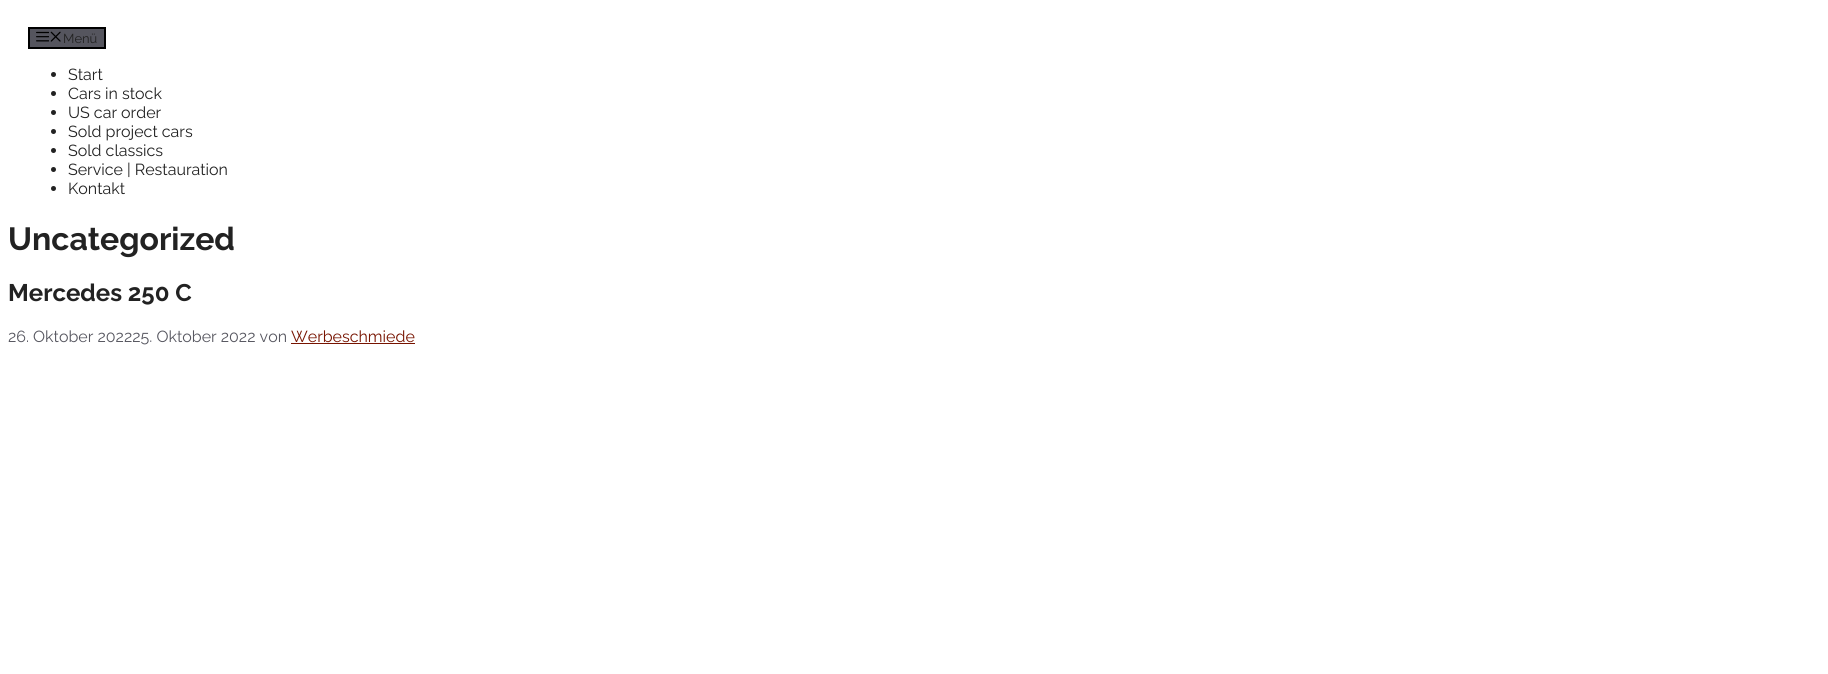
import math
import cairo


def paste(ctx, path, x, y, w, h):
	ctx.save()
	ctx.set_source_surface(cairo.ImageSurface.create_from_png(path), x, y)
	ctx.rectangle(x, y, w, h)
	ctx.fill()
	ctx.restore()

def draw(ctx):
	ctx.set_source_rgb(1, 1, 1)
	ctx.paint()
	ctx.set_source_rgb(0.333, 0.333, 0.369)
	ctx.rectangle(29, 28, 76, 20)
	ctx.fill_preserve()
	ctx.set_source_rgb(0, 0, 0)
	ctx.stroke()
	paste(ctx, 'media/1.png', 36, 31, 13, 11)
	paste(ctx, 'media/2.png', 50, 31, 11, 11)
	ctx.select_font_face('Raleway')
	ctx.set_font_size(13)
	ctx.set_source_rgb(0.133, 0.133, 0.133)
	ctx.move_to(63, 43)
	ctx.show_text('Menü')
	ctx.new_path()
	ctx.arc(53.5, 74.5, 2.5, 0, 2 * math.pi)
	ctx.fill()
	ctx.set_font_size(16)
	ctx.move_to(68, 80)
	ctx.show_text('Start')
	ctx.new_path()
	ctx.arc(53.5, 93.5, 2.5, 0, 2 * math.pi)
	ctx.fill()
	ctx.move_to(68, 99)
	ctx.show_text('Cars in stock')
	ctx.new_path()
	ctx.arc(53.5, 112.5, 2.5, 0, 2 * math.pi)
	ctx.fill()
	ctx.move_to(68, 118)
	ctx.show_text('US car order')
	ctx.new_path()
	ctx.arc(53.5, 131.5, 2.5, 0, 2 * math.pi)
	ctx.fill()
	ctx.move_to(68, 137)
	ctx.show_text('Sold project cars')
	ctx.new_path()
	ctx.arc(53.5, 150.5, 2.5, 0, 2 * math.pi)
	ctx.fill()
	ctx.move_to(68, 156)
	ctx.show_text('Sold classics')
	ctx.new_path()
	ctx.arc(53.5, 169.5, 2.5, 0, 2 * math.pi)
	ctx.fill()
	ctx.move_to(68, 175)
	ctx.show_text('Service | Restauration')
	ctx.new_path()
	ctx.arc(53.5, 188.5, 2.5, 0, 2 * math.pi)
	ctx.fill()
	ctx.move_to(68, 194)
	ctx.show_text('Kontakt')
	ctx.select_font_face('Raleway', cairo.FONT_SLANT_NORMAL, cairo.FONT_WEIGHT_BOLD)
	ctx.set_font_size(32)
	ctx.move_to(8, 250)
	ctx.show_text('Uncategorized')
	ctx.set_font_size(24)
	ctx.move_to(8, 301)
	ctx.show_text('Mercedes 250 C')
	ctx.select_font_face('Raleway')
	ctx.set_font_size(16)
	ctx.set_source_rgb(0.341, 0.341, 0.376)
	ctx.move_to(8, 342)
	ctx.show_text('26. Oktober 202225. Oktober 2022 von')
	ctx.set_source_rgb(0.467, 0.075, 0)
	ctx.move_to(291, 342)
	ctx.show_text('Werbeschmiede')
	ctx.rectangle(291, 343, 124, 1)
	ctx.fill()


surface = cairo.ImageSurface(cairo.FORMAT_RGB24, 1828, 674)
ctx = cairo.Context(surface)
options = cairo.FontOptions()
options.set_hint_metrics(cairo.HINT_METRICS_OFF)
options.set_hint_style(cairo.HINT_STYLE_NONE)
ctx.set_font_options(options)
ctx.set_miter_limit(4)
draw(ctx)
surface.write_to_png('image.png')
